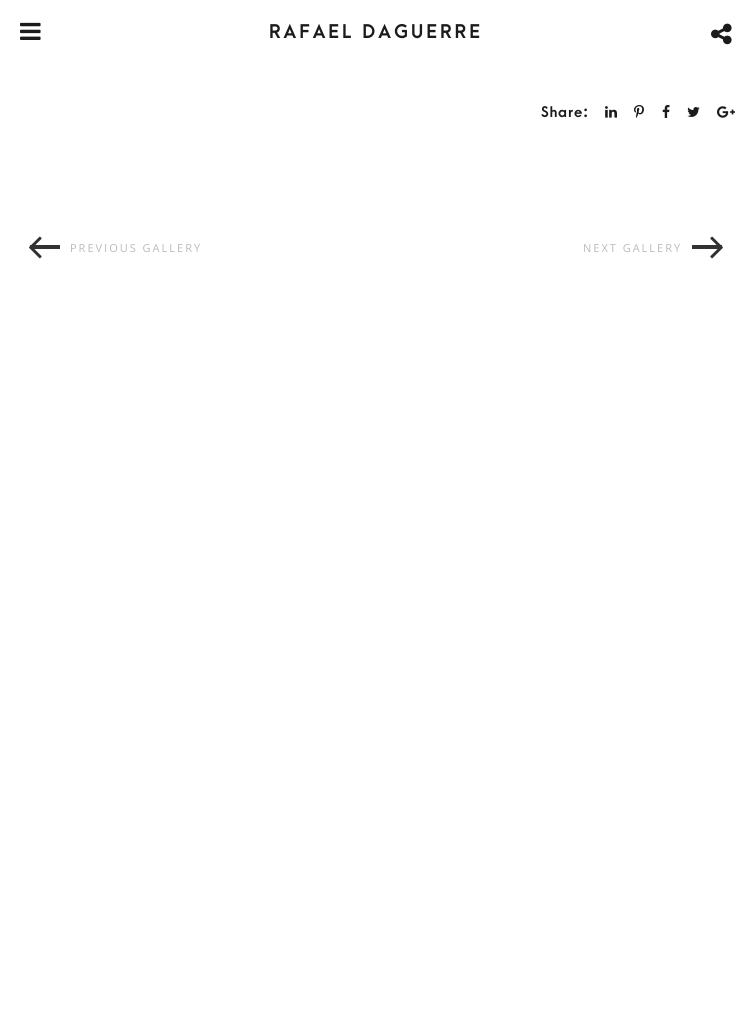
import math
import cairo


def write_spaced(ctx, x, y, s, letter, word):
	ctx.move_to(x, y)
	for ch in s:
		ctx.show_text(ch)
		ctx.rel_move_to(letter + word * (ch == ' '), 0)

def paste(ctx, path, x, y, w, h):
	ctx.save()
	ctx.set_source_surface(cairo.ImageSurface.create_from_png(path), x, y)
	ctx.rectangle(x, y, w, h)
	ctx.fill()
	ctx.restore()

def draw(ctx):
	ctx.set_source_rgb(1, 1, 1)
	ctx.paint()
	paste(ctx, 'media/1.png', 20, 22, 21, 18)
	ctx.select_font_face('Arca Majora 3', cairo.FONT_SLANT_NORMAL, cairo.FONT_WEIGHT_BOLD)
	ctx.set_font_size(18)
	ctx.set_source_rgb(0.106, 0.106, 0.106)
	write_spaced(ctx, 269, 38, 'RAFAEL DAGUERRE', 3, 0)
	paste(ctx, 'media/2.png', 711, 23, 21, 22)
	ctx.set_font_size(14)
	write_spaced(ctx, 541, 117, 'Share:', 0.75, 0)
	paste(ctx, 'media/3.png', 605, 106, 12, 12)
	paste(ctx, 'media/4.png', 634, 105, 10, 13)
	paste(ctx, 'media/5.png', 662, 105, 8, 13)
	paste(ctx, 'media/6.png', 687, 107, 13, 10)
	paste(ctx, 'media/7.png', 717, 106, 18, 12)
	paste(ctx, 'media/8.png', 29, 236, 13, 23)
	ctx.select_font_face('Open Sans')
	ctx.set_font_size(11)
	ctx.set_source_rgb(0.729, 0.729, 0.729)
	write_spaced(ctx, 70, 252, 'PREVIOUS GALLERY', 2, 0)
	ctx.set_source_rgb(0.196, 0.196, 0.196)
	ctx.rectangle(30, 245, 30, 4)
	ctx.fill()
	ctx.set_source_rgb(0.729, 0.729, 0.729)
	write_spaced(ctx, 583, 252, 'NEXT GALLERY', 2, 0)
	paste(ctx, 'media/9.png', 710, 236, 13, 23)
	ctx.set_source_rgb(0.196, 0.196, 0.196)
	ctx.rectangle(692, 245, 30, 4)
	ctx.fill()


surface = cairo.ImageSurface(cairo.FORMAT_RGB24, 752, 1022)
ctx = cairo.Context(surface)
options = cairo.FontOptions()
options.set_hint_metrics(cairo.HINT_METRICS_OFF)
options.set_hint_style(cairo.HINT_STYLE_NONE)
ctx.set_font_options(options)
ctx.set_miter_limit(4)
draw(ctx)
surface.write_to_png('image.png')
